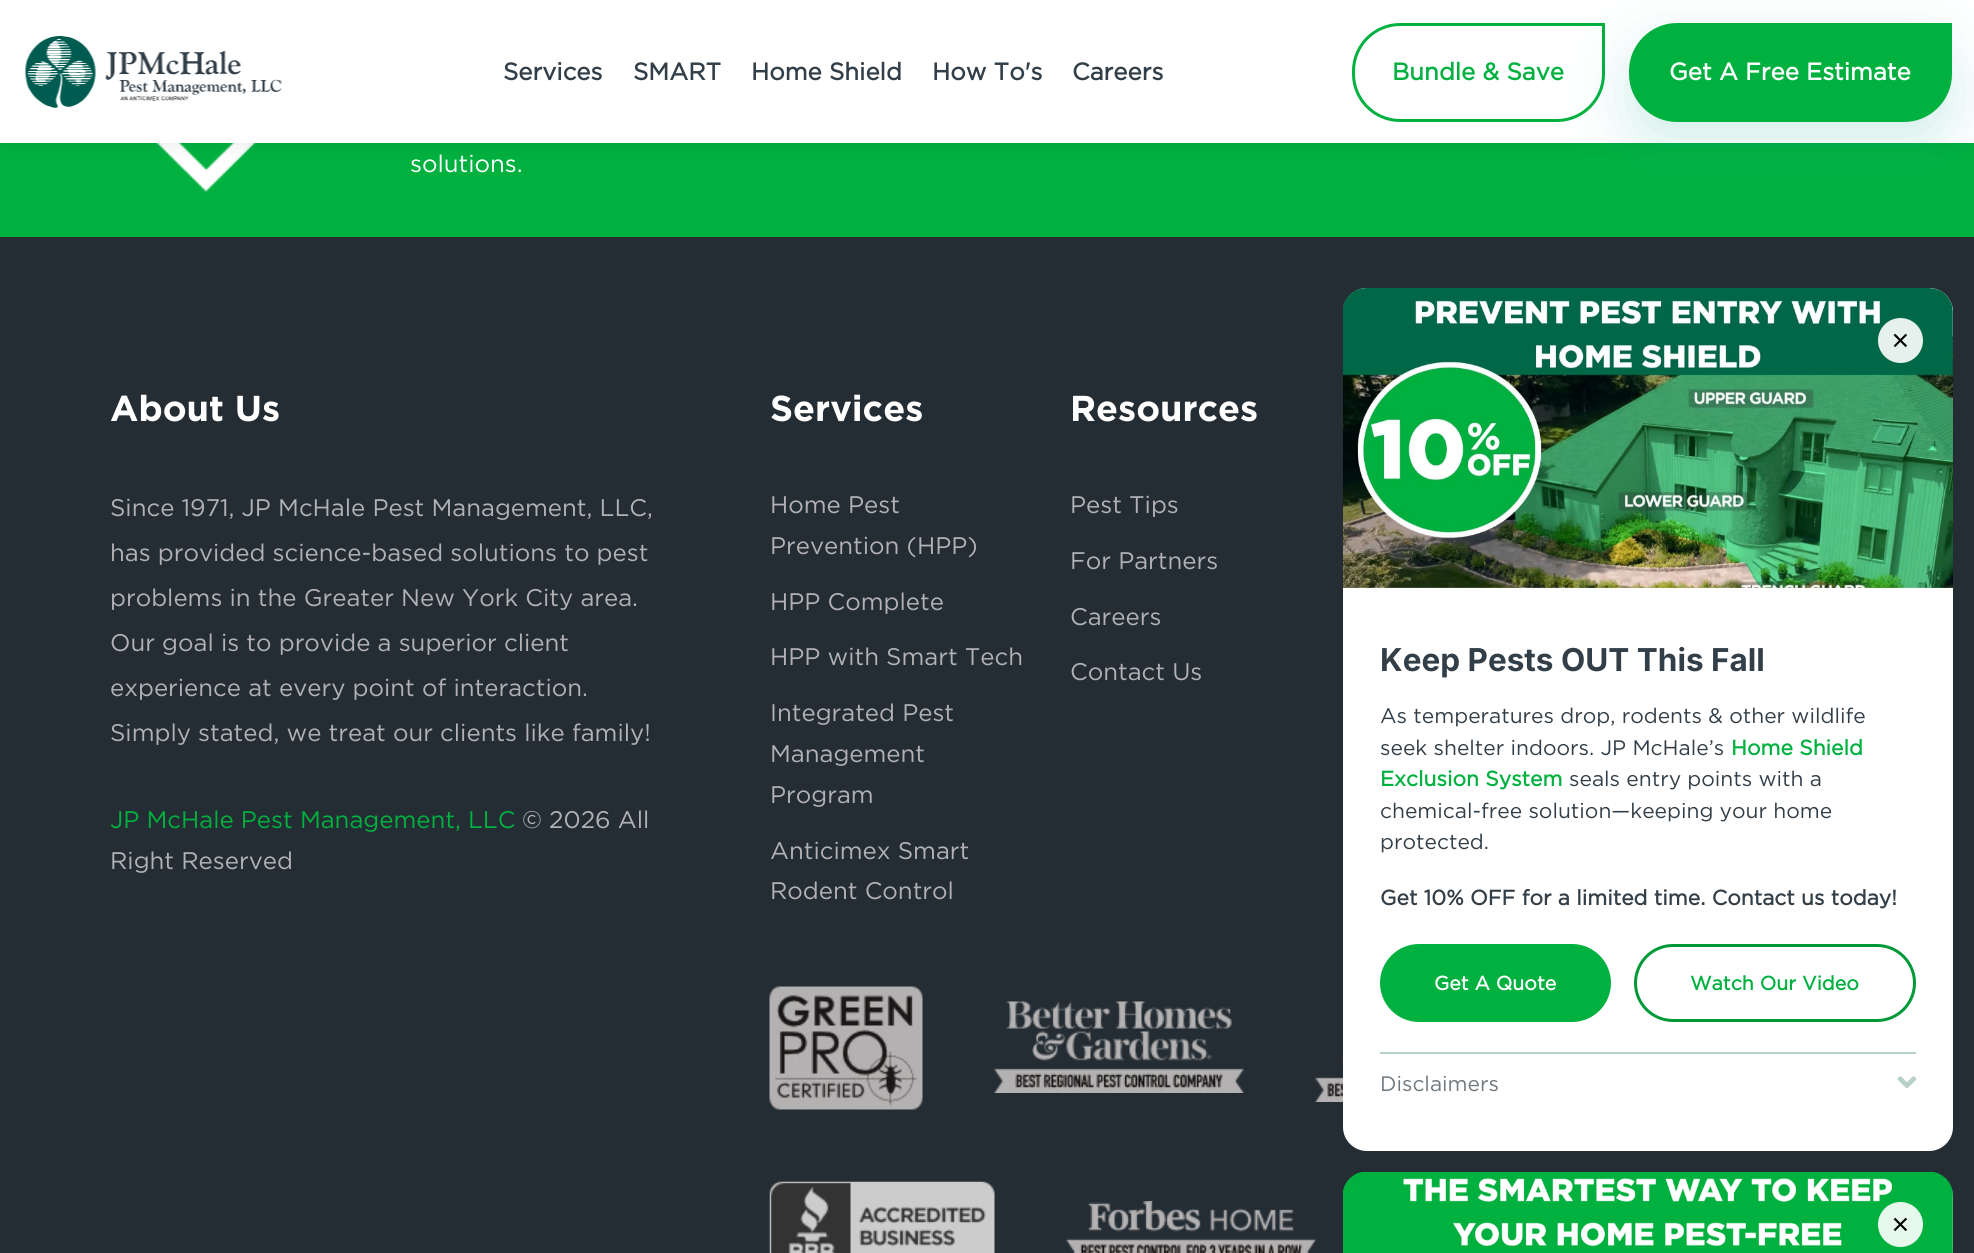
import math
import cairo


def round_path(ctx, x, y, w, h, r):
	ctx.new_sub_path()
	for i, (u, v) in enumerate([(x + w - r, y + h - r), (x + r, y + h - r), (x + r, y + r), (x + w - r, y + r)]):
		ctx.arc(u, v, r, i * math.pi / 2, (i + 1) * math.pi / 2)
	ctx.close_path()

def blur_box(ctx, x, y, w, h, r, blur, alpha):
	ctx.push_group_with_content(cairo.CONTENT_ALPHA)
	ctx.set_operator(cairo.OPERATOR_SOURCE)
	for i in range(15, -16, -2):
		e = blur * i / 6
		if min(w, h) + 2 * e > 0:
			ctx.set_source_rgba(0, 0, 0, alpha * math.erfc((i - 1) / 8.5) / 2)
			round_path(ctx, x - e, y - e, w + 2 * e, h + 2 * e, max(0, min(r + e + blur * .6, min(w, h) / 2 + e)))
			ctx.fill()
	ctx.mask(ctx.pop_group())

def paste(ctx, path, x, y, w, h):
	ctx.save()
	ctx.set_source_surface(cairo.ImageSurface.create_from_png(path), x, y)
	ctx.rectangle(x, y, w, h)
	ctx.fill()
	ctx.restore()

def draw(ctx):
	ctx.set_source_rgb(0, 0.694, 0.251)
	ctx.paint()
	paste(ctx, 'media/2.png', 155, 143, 101, 49)
	ctx.set_source_rgb(0, 0, 0)
	blur_box(ctx, 0, 0, 1974, 143, 0, 11, 0.1)
	ctx.set_source_rgb(1, 1, 1)
	ctx.rectangle(0, 0, 1974, 143)
	ctx.fill()
	paste(ctx, 'media/1.png', 25, 36, 257, 72)
	ctx.select_font_face('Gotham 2', cairo.FONT_SLANT_NORMAL, cairo.FONT_WEIGHT_BOLD)
	ctx.set_font_size(24)
	ctx.set_source_rgb(0.2, 0.247, 0.282)
	for x, y, s in [
		(503, 80, 'Services'),
		(633, 80, 'SMART'),
		(751, 80, 'Home Shield'),
		(932, 80, 'How To\'s'),
		(1072, 80, 'Careers'),
	]:
		ctx.move_to(x, y)
		ctx.show_text(s)
	ctx.new_path()
	ctx.move_to(1400, 24.5)
	ctx.line_to(1603.5, 24.5)
	ctx.line_to(1603.5, 74)
	ctx.curve_to(1603.5, 99.5, 1582.5, 120.5, 1557, 120.5)
	ctx.line_to(1400, 120.5)
	ctx.curve_to(1374.5, 120.5, 1353.5, 99.5, 1353.5, 74)
	ctx.line_to(1353.5, 71)
	ctx.curve_to(1353.5, 45.5, 1374.5, 24.5, 1400, 24.5)
	ctx.close_path()
	ctx.set_source_rgb(0, 0.694, 0.251)
	ctx.set_line_width(3)
	ctx.stroke()
	ctx.move_to(1392, 80)
	ctx.show_text('Bundle & Save')
	ctx.set_source_rgb(0.125, 0.671, 0.58)
	blur_box(ctx, 1629, 45, 323, 99, 48, 30, 0.2)
	ctx.set_source_rgb(0, 0.694, 0.251)
	ctx.new_path()
	ctx.move_to(1677, 24.5)
	ctx.line_to(1950.5, 24.5)
	ctx.line_to(1950.5, 74)
	ctx.curve_to(1950.5, 99.5, 1929.5, 120.5, 1904, 120.5)
	ctx.line_to(1677, 120.5)
	ctx.curve_to(1651.5, 120.5, 1630.5, 99.5, 1630.5, 74)
	ctx.line_to(1630.5, 71)
	ctx.curve_to(1630.5, 45.5, 1651.5, 24.5, 1677, 24.5)
	ctx.close_path()
	ctx.fill_preserve()
	ctx.stroke()
	ctx.set_source_rgb(1, 1, 1)
	ctx.move_to(1669, 80)
	ctx.show_text('Get A Free Estimate')
	ctx.select_font_face('Gotham')
	ctx.move_to(410, 172)
	ctx.show_text('solutions.')
	ctx.set_source_rgb(0.141, 0.176, 0.2)
	ctx.rectangle(0, 237, 1974, 1016)
	ctx.fill()
	ctx.select_font_face('Gotham', cairo.FONT_SLANT_NORMAL, cairo.FONT_WEIGHT_BOLD)
	ctx.set_font_size(36)
	ctx.set_source_rgb(1, 1, 1)
	ctx.move_to(110, 421)
	ctx.show_text('About Us')
	ctx.select_font_face('Gotham')
	ctx.set_font_size(24)
	ctx.set_source_rgb(0.694, 0.698, 0.714)
	for x, y, s in [
		(110, 516, 'Since 1971, JP McHale Pest Management, LLC,'),
		(110, 561, 'has provided science-based solutions to pest'),
		(110, 606, 'problems in the Greater New York City area.'),
		(110, 651, 'Our goal is to provide a superior client'),
		(110, 696, 'experience at every point of interaction.'),
		(110, 741, 'Simply stated, we treat our clients like family!'),
	]:
		ctx.move_to(x, y)
		ctx.show_text(s)
	ctx.set_source_rgb(0, 0.694, 0.251)
	ctx.move_to(110, 828)
	ctx.show_text('JP McHale Pest Management, LLC')
	ctx.set_source_rgb(0.694, 0.698, 0.714)
	ctx.move_to(522, 828)
	ctx.show_text('© 2026 All')
	ctx.move_to(110, 869)
	ctx.show_text('Right Reserved')
	ctx.select_font_face('Gotham', cairo.FONT_SLANT_NORMAL, cairo.FONT_WEIGHT_BOLD)
	ctx.set_font_size(36)
	ctx.set_source_rgb(1, 1, 1)
	ctx.move_to(770, 421)
	ctx.show_text('Services')
	ctx.select_font_face('Gotham')
	ctx.set_font_size(24)
	ctx.set_source_rgb(0.694, 0.698, 0.714)
	for x, y, s in [
		(770, 513, 'Home Pest'),
		(770, 554, 'Prevention (HPP)'),
		(770, 610, 'HPP Complete'),
		(770, 665, 'HPP with Smart Tech'),
		(770, 721, 'Integrated Pest'),
		(770, 762, 'Management'),
		(770, 803, 'Program'),
		(770, 859, 'Anticimex Smart'),
		(770, 899, 'Rodent Control'),
	]:
		ctx.move_to(x, y)
		ctx.show_text(s)
	ctx.select_font_face('Gotham', cairo.FONT_SLANT_NORMAL, cairo.FONT_WEIGHT_BOLD)
	ctx.set_font_size(36)
	ctx.set_source_rgb(1, 1, 1)
	ctx.move_to(1070, 421)
	ctx.show_text('Resources')
	ctx.select_font_face('Gotham')
	ctx.set_font_size(24)
	ctx.set_source_rgb(0.694, 0.698, 0.714)
	for x, y, s in [
		(1070, 513, 'Pest Tips'),
		(1070, 569, 'For Partners'),
		(1070, 625, 'Careers'),
		(1070, 680, 'Contact Us'),
	]:
		ctx.move_to(x, y)
		ctx.show_text(s)
	paste(ctx, 'media/3.png', 769, 986, 154, 124)
	paste(ctx, 'media/4.png', 994, 1001, 250, 92)
	paste(ctx, 'media/5.png', 1315, 1060, 28, 42)
	paste(ctx, 'media/6.png', 769, 1181, 226, 72)
	paste(ctx, 'media/7.png', 1066, 1201, 250, 52)
	ctx.set_source_rgb(1, 1, 1)
	round_path(ctx, 1343, 288, 610, 863, 24)
	ctx.fill()
	paste(ctx, 'media/8.png', 1343, 288, 610, 300)
	ctx.set_source_rgb(0.902, 0.941, 0.929)
	ctx.arc(1900.5, 340.5, 22.5, 0, 2 * math.pi)
	ctx.fill()
	ctx.set_font_size(30)
	ctx.set_source_rgb(0, 0, 0)
	ctx.move_to(1891, 351)
	ctx.show_text('×')
	ctx.select_font_face('Inter', cairo.FONT_SLANT_NORMAL, cairo.FONT_WEIGHT_BOLD)
	ctx.set_font_size(31.5)
	ctx.set_source_rgb(0.2, 0.247, 0.282)
	ctx.move_to(1380, 671)
	ctx.show_text('Keep Pests OUT This Fall')
	ctx.select_font_face('Gotham')
	ctx.set_font_size(21)
	ctx.move_to(1380, 723)
	ctx.show_text('As temperatures drop, rodents & other wildlife')
	ctx.move_to(1380, 755)
	ctx.show_text('seek shelter indoors. JP McHale’s')
	ctx.select_font_face('Gotham 2', cairo.FONT_SLANT_NORMAL, cairo.FONT_WEIGHT_BOLD)
	ctx.set_source_rgb(0, 0.694, 0.251)
	ctx.move_to(1731, 755)
	ctx.show_text('Home Shield')
	ctx.move_to(1380, 786)
	ctx.show_text('Exclusion System')
	ctx.select_font_face('Gotham')
	ctx.set_source_rgb(0.2, 0.247, 0.282)
	for x, y, s in [
		(1569, 786, 'seals entry points with a'),
		(1380, 818, 'chemical-free solution—keeping your home'),
		(1380, 849, 'protected.'),
	]:
		ctx.move_to(x, y)
		ctx.show_text(s)
	ctx.select_font_face('Gotham 2', cairo.FONT_SLANT_NORMAL, cairo.FONT_WEIGHT_BOLD)
	ctx.move_to(1380, 905)
	ctx.show_text('Get 10% OFF for a limited time. Contact us today!')
	ctx.set_source_rgb(0, 0.694, 0.251)
	round_path(ctx, 1380, 944, 231, 78, 39)
	ctx.fill()
	ctx.set_font_size(19.5)
	ctx.set_source_rgb(1, 1, 1)
	ctx.move_to(1434, 990)
	ctx.show_text('Get A Quote')
	round_path(ctx, 1635.5, 945.5, 279, 75, 37.5)
	ctx.set_source_rgb(0, 0.6, 0.216)
	ctx.stroke()
	ctx.set_source_rgb(0, 0.694, 0.251)
	ctx.move_to(1690, 990)
	ctx.show_text('Watch Our Video')
	ctx.set_source_rgb(0.718, 0.816, 0.784)
	ctx.rectangle(1380, 1052, 536, 2)
	ctx.fill()
	ctx.select_font_face('Gotham')
	ctx.set_font_size(21)
	ctx.set_source_rgb(0.439, 0.475, 0.498)
	ctx.move_to(1380, 1091)
	ctx.show_text('Disclaimers')
	paste(ctx, 'media/9.png', 1897, 1076, 20, 13)
	paste(ctx, 'media/10.png', 1343, 1172, 610, 81)
	ctx.set_source_rgb(0.902, 0.969, 0.925)
	ctx.arc(1900.5, 1224.5, 22.5, 0, 2 * math.pi)
	ctx.fill()
	ctx.set_font_size(30)
	ctx.set_source_rgb(0, 0, 0)
	ctx.move_to(1891, 1235)
	ctx.show_text('×')


surface = cairo.ImageSurface(cairo.FORMAT_RGB24, 1974, 1253)
ctx = cairo.Context(surface)
options = cairo.FontOptions()
options.set_hint_metrics(cairo.HINT_METRICS_OFF)
options.set_hint_style(cairo.HINT_STYLE_NONE)
ctx.set_font_options(options)
ctx.set_miter_limit(4)
draw(ctx)
surface.write_to_png('image.png')
